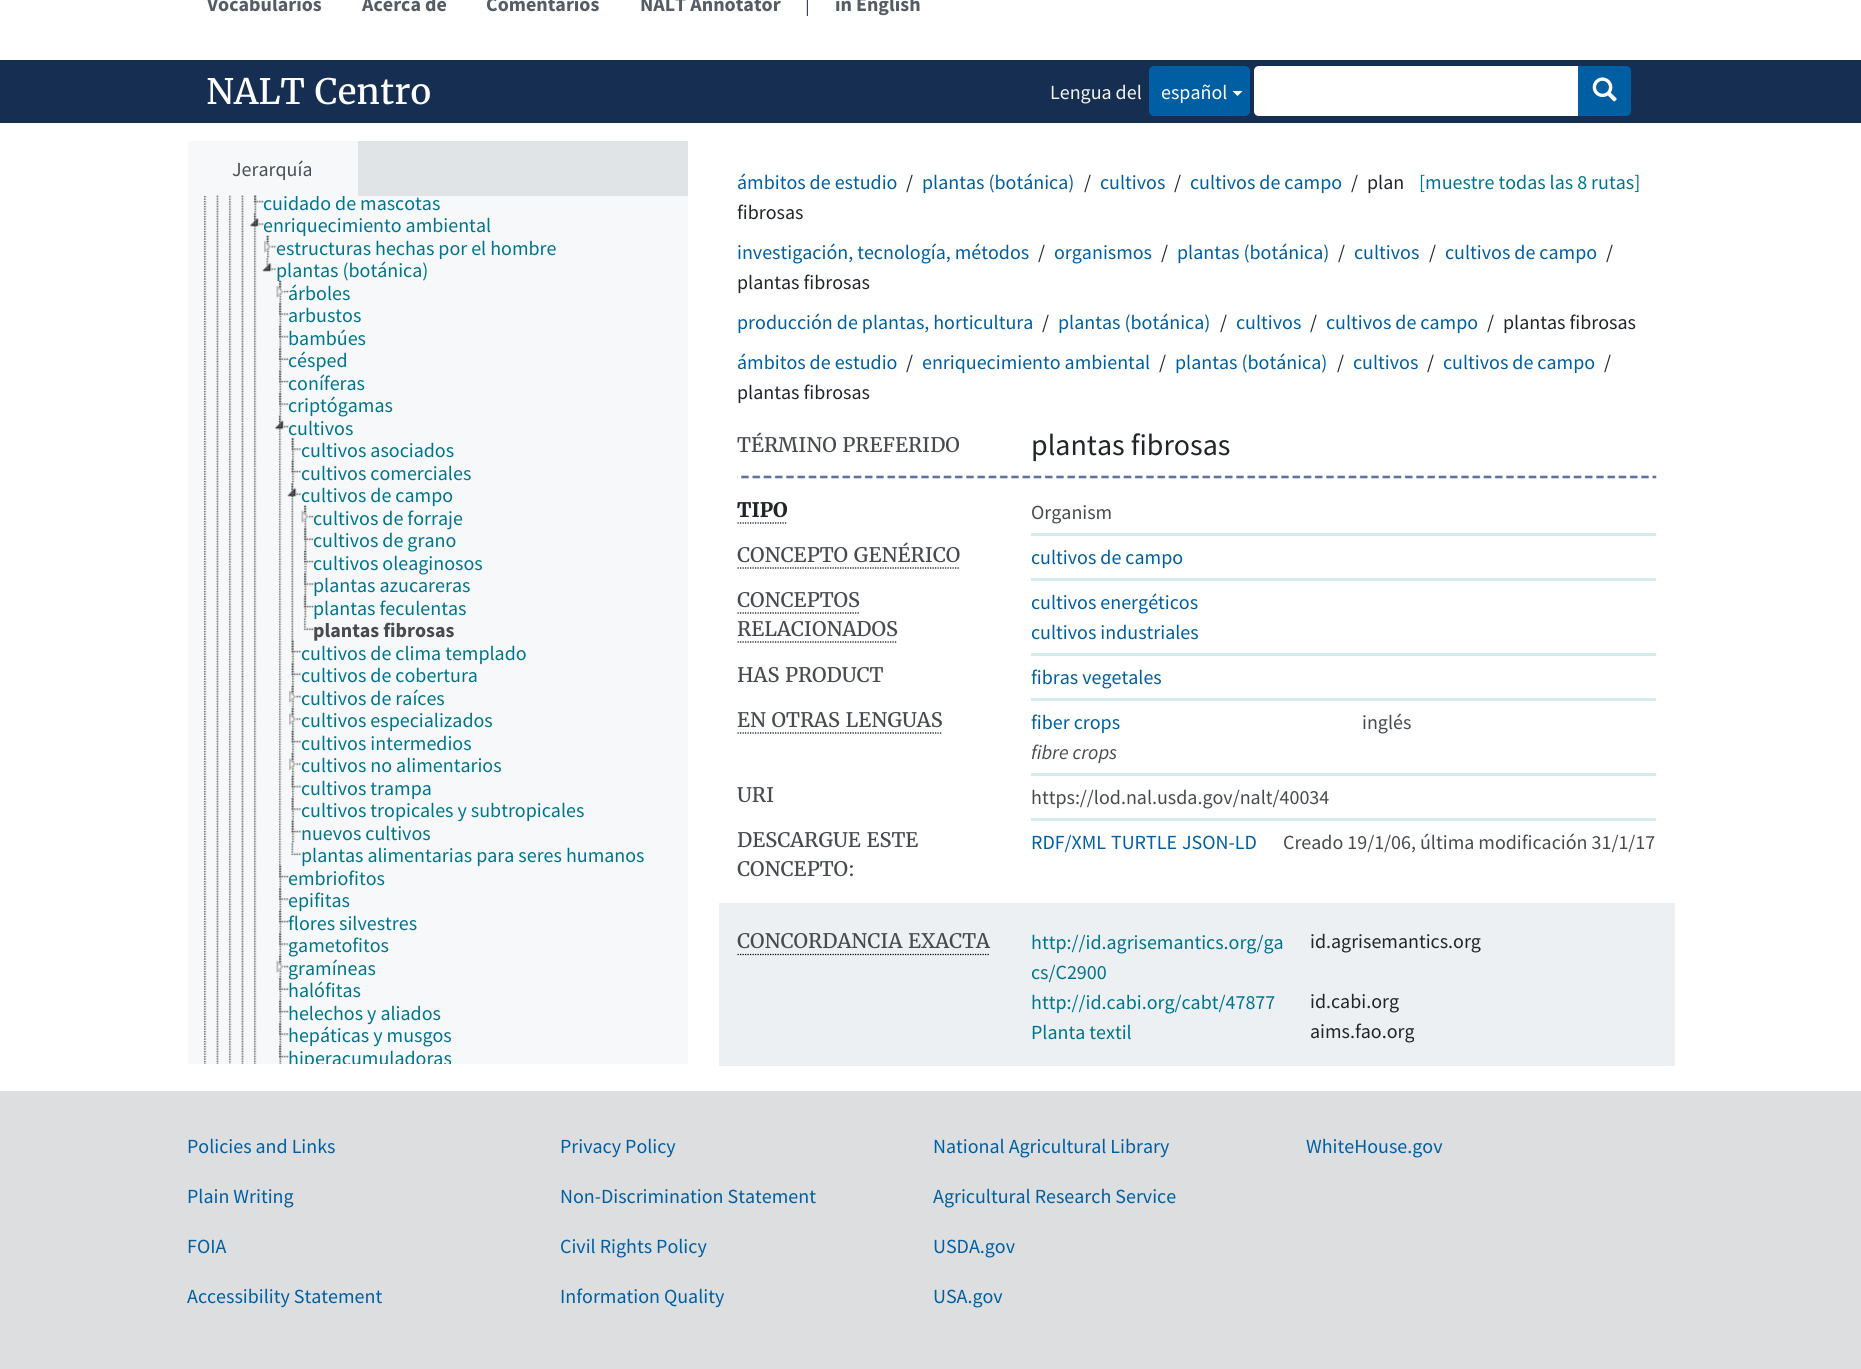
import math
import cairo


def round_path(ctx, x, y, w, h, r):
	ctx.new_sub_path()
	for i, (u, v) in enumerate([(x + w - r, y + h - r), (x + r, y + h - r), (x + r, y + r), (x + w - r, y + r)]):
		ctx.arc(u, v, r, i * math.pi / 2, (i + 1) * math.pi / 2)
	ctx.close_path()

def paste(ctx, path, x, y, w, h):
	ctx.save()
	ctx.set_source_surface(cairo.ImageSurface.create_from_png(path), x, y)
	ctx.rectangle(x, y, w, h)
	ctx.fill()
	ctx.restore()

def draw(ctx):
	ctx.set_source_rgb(1, 1, 1)
	ctx.paint()
	ctx.select_font_face('Source Sans Pro', cairo.FONT_SLANT_NORMAL, cairo.FONT_WEIGHT_BOLD)
	ctx.set_font_size(20)
	ctx.set_source_rgb(0.337, 0.361, 0.396)
	for x, y, s in [
		(207, 11, 'Vocabularios'),
		(362, 11, 'Acerca de'),
		(486, 11, 'Comentarios'),
		(640, 11, 'NALT Annotator'),
	]:
		ctx.move_to(x, y)
		ctx.show_text(s)
	ctx.select_font_face('Source Sans Pro')
	ctx.set_source_rgb(0.224, 0.271, 0.329)
	ctx.move_to(805, 11)
	ctx.show_text('|')
	ctx.select_font_face('Source Sans Pro', cairo.FONT_SLANT_NORMAL, cairo.FONT_WEIGHT_BOLD)
	ctx.set_source_rgb(0.337, 0.361, 0.396)
	ctx.move_to(835, 11)
	ctx.show_text('in English')
	ctx.set_source_rgb(0.086, 0.18, 0.318)
	ctx.rectangle(0, 60, 1861, 63)
	ctx.fill()
	ctx.select_font_face('Merriweather')
	ctx.set_font_size(35)
	ctx.set_source_rgb(1, 1, 1)
	ctx.move_to(206, 104)
	ctx.show_text('NALT Centro')
	ctx.select_font_face('Source Sans Pro')
	ctx.set_font_size(20)
	ctx.set_source_rgb(0.953, 0.961, 0.965)
	ctx.move_to(1050, 99)
	ctx.show_text('Lengua del')
	ctx.set_source_rgb(0, 0.369, 0.635)
	round_path(ctx, 1149, 66, 101, 50, 5)
	ctx.fill()
	ctx.set_source_rgb(1, 1, 1)
	ctx.move_to(1161, 99)
	ctx.show_text('español')
	ctx.new_path()
	ctx.move_to(1232.5, 91)
	ctx.line_to(1242.5, 91)
	ctx.line_to(1237.5, 96)
	ctx.close_path()
	ctx.fill()
	ctx.new_path()
	ctx.move_to(1259, 66)
	ctx.line_to(1579, 66)
	ctx.line_to(1579, 116)
	ctx.line_to(1259, 116)
	ctx.curve_to(1256, 116, 1254, 114, 1254, 111)
	ctx.line_to(1254, 71)
	ctx.curve_to(1254, 68, 1256, 66, 1259, 66)
	ctx.close_path()
	ctx.fill()
	ctx.set_source_rgb(0, 0.369, 0.635)
	ctx.new_path()
	ctx.move_to(1578, 66)
	ctx.line_to(1626, 66)
	ctx.curve_to(1629, 66, 1631, 68, 1631, 71)
	ctx.line_to(1631, 111)
	ctx.curve_to(1631, 114, 1629, 116, 1626, 116)
	ctx.line_to(1578, 116)
	ctx.close_path()
	ctx.fill()
	paste(ctx, 'media/1.png', 1592, 77, 25, 25)
	ctx.set_source_rgb(0.878, 0.894, 0.906)
	ctx.rectangle(358, 141, 330, 55)
	ctx.fill()
	ctx.set_source_rgb(0.965, 0.969, 0.973)
	ctx.rectangle(188, 141, 170, 55)
	ctx.fill()
	ctx.set_source_rgb(0.286, 0.314, 0.341)
	ctx.move_to(232, 176)
	ctx.show_text('Jerarquía')
	ctx.set_source_rgb(0.965, 0.969, 0.973)
	ctx.rectangle(188, 196, 500, 868)
	ctx.fill()
	paste(ctx, 'media/2.png', 203, 195, 4, 869)
	paste(ctx, 'media/3.png', 216, 195, 3, 869)
	paste(ctx, 'media/4.png', 228, 195, 4, 869)
	paste(ctx, 'media/5.png', 241, 195, 3, 869)
	paste(ctx, 'media/6.png', 254, 195, 3, 18)
	paste(ctx, 'media/7.png', 253, 195, 11, 8)
	ctx.save()
	ctx.rectangle(188, 196, 500, 868)
	ctx.clip()
	ctx.set_source_rgb(0, 0.455, 0.561)
	ctx.move_to(263, 210)
	ctx.show_text('cuidado de mascotas')
	ctx.restore()
	paste(ctx, 'media/8.png', 253, 213, 4, 851)
	paste(ctx, 'media/9.png', 250, 213, 14, 14)
	paste(ctx, 'media/10.png', 266, 235, 4, 23)
	ctx.set_source_rgb(0, 0.455, 0.561)
	ctx.move_to(263, 232)
	ctx.show_text('enriquecimiento ambiental')
	paste(ctx, 'media/11.png', 264, 235, 12, 18)
	ctx.move_to(276, 255)
	ctx.show_text('estructuras hechas por el hombre')
	paste(ctx, 'media/12.png', 262, 258, 14, 14)
	paste(ctx, 'media/13.png', 279, 280, 3, 23)
	ctx.move_to(276, 277)
	ctx.show_text('plantas (botánica)')
	paste(ctx, 'media/14.png', 276, 280, 13, 18)
	ctx.move_to(288, 300)
	ctx.show_text('árboles')
	paste(ctx, 'media/15.png', 279, 303, 3, 23)
	paste(ctx, 'media/16.png', 278, 303, 11, 13)
	ctx.move_to(288, 322)
	ctx.show_text('arbustos')
	paste(ctx, 'media/17.png', 279, 325, 3, 23)
	paste(ctx, 'media/18.png', 278, 325, 11, 13)
	ctx.move_to(288, 345)
	ctx.show_text('bambúes')
	paste(ctx, 'media/19.png', 279, 348, 3, 23)
	paste(ctx, 'media/20.png', 278, 347, 11, 14)
	ctx.move_to(288, 367)
	ctx.show_text('césped')
	paste(ctx, 'media/21.png', 279, 370, 3, 23)
	paste(ctx, 'media/22.png', 278, 370, 11, 13)
	ctx.move_to(288, 390)
	ctx.show_text('coníferas')
	paste(ctx, 'media/15.png', 279, 393, 3, 23)
	paste(ctx, 'media/16.png', 278, 393, 11, 13)
	ctx.move_to(288, 412)
	ctx.show_text('criptógamas')
	paste(ctx, 'media/23.png', 278, 415, 4, 452)
	paste(ctx, 'media/24.png', 275, 415, 14, 15)
	ctx.move_to(288, 435)
	ctx.show_text('cultivos')
	paste(ctx, 'media/25.png', 291, 437, 4, 24)
	paste(ctx, 'media/26.png', 291, 438, 10, 13)
	ctx.move_to(301, 457)
	ctx.show_text('cultivos asociados')
	paste(ctx, 'media/27.png', 291, 460, 4, 23)
	paste(ctx, 'media/28.png', 291, 460, 10, 13)
	ctx.move_to(301, 480)
	ctx.show_text('cultivos comerciales')
	paste(ctx, 'media/29.png', 291, 483, 3, 159)
	paste(ctx, 'media/30.png', 287, 482, 14, 15)
	paste(ctx, 'media/31.png', 304, 505, 3, 23)
	ctx.move_to(301, 502)
	ctx.show_text('cultivos de campo')
	paste(ctx, 'media/32.png', 301, 505, 13, 18)
	ctx.move_to(313, 525)
	ctx.show_text('cultivos de forraje')
	paste(ctx, 'media/33.png', 304, 528, 3, 23)
	paste(ctx, 'media/34.png', 303, 527, 11, 14)
	ctx.move_to(313, 547)
	ctx.show_text('cultivos de grano')
	paste(ctx, 'media/35.png', 304, 550, 3, 23)
	paste(ctx, 'media/36.png', 303, 550, 11, 13)
	ctx.move_to(313, 570)
	ctx.show_text('cultivos oleaginosos')
	paste(ctx, 'media/37.png', 304, 572, 3, 24)
	paste(ctx, 'media/38.png', 303, 573, 11, 13)
	ctx.move_to(313, 592)
	ctx.show_text('plantas azucareras')
	paste(ctx, 'media/39.png', 304, 595, 3, 23)
	paste(ctx, 'media/40.png', 303, 595, 11, 13)
	ctx.move_to(313, 615)
	ctx.show_text('plantas feculentas')
	paste(ctx, 'media/41.png', 303, 617, 11, 14)
	ctx.select_font_face('Source Sans Pro', cairo.FONT_SLANT_NORMAL, cairo.FONT_WEIGHT_BOLD)
	ctx.set_source_rgb(0.278, 0.294, 0.31)
	ctx.move_to(313, 637)
	ctx.show_text('plantas fibrosas')
	paste(ctx, 'media/42.png', 291, 640, 3, 23)
	paste(ctx, 'media/43.png', 291, 640, 10, 13)
	ctx.select_font_face('Source Sans Pro')
	ctx.set_source_rgb(0, 0.455, 0.561)
	ctx.move_to(301, 660)
	ctx.show_text('cultivos de clima templado')
	paste(ctx, 'media/44.png', 291, 663, 4, 23)
	paste(ctx, 'media/45.png', 291, 662, 10, 14)
	ctx.move_to(301, 682)
	ctx.show_text('cultivos de cobertura')
	paste(ctx, 'media/46.png', 291, 685, 3, 23)
	paste(ctx, 'media/47.png', 289, 685, 12, 18)
	ctx.move_to(301, 705)
	ctx.show_text('cultivos de raíces')
	paste(ctx, 'media/44.png', 291, 708, 4, 23)
	paste(ctx, 'media/48.png', 289, 708, 12, 18)
	ctx.move_to(301, 727)
	ctx.show_text('cultivos especializados')
	paste(ctx, 'media/49.png', 291, 730, 4, 23)
	paste(ctx, 'media/50.png', 291, 730, 10, 13)
	ctx.move_to(301, 750)
	ctx.show_text('cultivos intermedios')
	paste(ctx, 'media/44.png', 291, 753, 4, 23)
	paste(ctx, 'media/48.png', 289, 753, 12, 18)
	ctx.move_to(301, 772)
	ctx.show_text('cultivos no alimentarios')
	paste(ctx, 'media/51.png', 291, 775, 4, 23)
	paste(ctx, 'media/52.png', 291, 775, 10, 13)
	ctx.move_to(301, 795)
	ctx.show_text('cultivos trampa')
	paste(ctx, 'media/53.png', 291, 798, 3, 23)
	paste(ctx, 'media/54.png', 291, 798, 10, 13)
	ctx.move_to(301, 817)
	ctx.show_text('cultivos tropicales y subtropicales')
	paste(ctx, 'media/55.png', 291, 820, 4, 23)
	paste(ctx, 'media/56.png', 291, 820, 10, 13)
	ctx.move_to(301, 840)
	ctx.show_text('nuevos cultivos')
	paste(ctx, 'media/57.png', 291, 842, 10, 14)
	ctx.move_to(301, 862)
	ctx.show_text('plantas alimentarias para seres humanos')
	paste(ctx, 'media/58.png', 279, 865, 3, 23)
	paste(ctx, 'media/59.png', 278, 865, 11, 13)
	ctx.move_to(288, 885)
	ctx.show_text('embriofitos')
	paste(ctx, 'media/60.png', 279, 887, 3, 24)
	paste(ctx, 'media/61.png', 278, 888, 11, 13)
	ctx.move_to(288, 907)
	ctx.show_text('epifitas')
	paste(ctx, 'media/39.png', 279, 910, 3, 23)
	paste(ctx, 'media/62.png', 278, 910, 11, 13)
	ctx.move_to(288, 930)
	ctx.show_text('flores silvestres')
	paste(ctx, 'media/60.png', 279, 932, 3, 24)
	paste(ctx, 'media/61.png', 278, 933, 11, 13)
	ctx.move_to(288, 952)
	ctx.show_text('gametofitos')
	paste(ctx, 'media/39.png', 279, 955, 3, 23)
	paste(ctx, 'media/63.png', 276, 955, 13, 18)
	ctx.move_to(288, 975)
	ctx.show_text('gramíneas')
	paste(ctx, 'media/19.png', 279, 978, 3, 23)
	paste(ctx, 'media/20.png', 278, 977, 11, 14)
	ctx.move_to(288, 997)
	ctx.show_text('halófitas')
	paste(ctx, 'media/64.png', 279, 1000, 3, 23)
	paste(ctx, 'media/65.png', 278, 1000, 11, 13)
	ctx.move_to(288, 1020)
	ctx.show_text('helechos y aliados')
	paste(ctx, 'media/66.png', 279, 1022, 3, 24)
	paste(ctx, 'media/67.png', 278, 1023, 11, 13)
	ctx.move_to(288, 1042)
	ctx.show_text('hepáticas y musgos')
	paste(ctx, 'media/68.png', 279, 1045, 3, 19)
	paste(ctx, 'media/69.png', 278, 1045, 11, 13)
	ctx.save()
	ctx.rectangle(188, 196, 500, 868)
	ctx.clip()
	ctx.move_to(288, 1065)
	ctx.show_text('hiperacumuladoras')
	ctx.restore()
	ctx.set_source_rgb(0, 0.369, 0.635)
	ctx.move_to(737, 189)
	ctx.show_text('ámbitos de estudio')
	ctx.set_source_rgb(0.129, 0.145, 0.161)
	ctx.move_to(906, 189)
	ctx.show_text('/')
	ctx.set_source_rgb(0, 0.369, 0.635)
	ctx.move_to(922, 189)
	ctx.show_text('plantas (botánica)')
	ctx.set_source_rgb(0.129, 0.145, 0.161)
	ctx.move_to(1084, 189)
	ctx.show_text('/')
	ctx.set_source_rgb(0, 0.369, 0.635)
	ctx.move_to(1100, 189)
	ctx.show_text('cultivos')
	ctx.set_source_rgb(0.129, 0.145, 0.161)
	ctx.move_to(1174, 189)
	ctx.show_text('/')
	ctx.set_source_rgb(0, 0.369, 0.635)
	ctx.move_to(1190, 189)
	ctx.show_text('cultivos de campo')
	ctx.set_source_rgb(0.129, 0.145, 0.161)
	for x, y, s in [
		(1351, 189, '/'),
		(1367, 189, 'plan'),
		(737, 219, 'fibrosas'),
	]:
		ctx.move_to(x, y)
		ctx.show_text(s)
	ctx.set_source_rgb(0, 0.455, 0.561)
	ctx.move_to(1419, 189)
	ctx.show_text('[muestre todas las 8 rutas]')
	ctx.set_source_rgb(0, 0.369, 0.635)
	ctx.move_to(737, 259)
	ctx.show_text('investigación, tecnología, métodos')
	ctx.set_source_rgb(0.129, 0.145, 0.161)
	ctx.move_to(1038, 259)
	ctx.show_text('/')
	ctx.set_source_rgb(0, 0.369, 0.635)
	ctx.move_to(1054, 259)
	ctx.show_text('organismos')
	ctx.set_source_rgb(0.129, 0.145, 0.161)
	ctx.move_to(1161, 259)
	ctx.show_text('/')
	ctx.set_source_rgb(0, 0.369, 0.635)
	ctx.move_to(1177, 259)
	ctx.show_text('plantas (botánica)')
	ctx.set_source_rgb(0.129, 0.145, 0.161)
	ctx.move_to(1338, 259)
	ctx.show_text('/')
	ctx.set_source_rgb(0, 0.369, 0.635)
	ctx.move_to(1354, 259)
	ctx.show_text('cultivos')
	ctx.set_source_rgb(0.129, 0.145, 0.161)
	ctx.move_to(1429, 259)
	ctx.show_text('/')
	ctx.set_source_rgb(0, 0.369, 0.635)
	ctx.move_to(1445, 259)
	ctx.show_text('cultivos de campo')
	ctx.set_source_rgb(0.129, 0.145, 0.161)
	ctx.move_to(1606, 259)
	ctx.show_text('/')
	ctx.move_to(737, 289)
	ctx.show_text('plantas fibrosas')
	ctx.set_source_rgb(0, 0.369, 0.635)
	ctx.move_to(737, 329)
	ctx.show_text('producción de plantas, horticultura')
	ctx.set_source_rgb(0.129, 0.145, 0.161)
	ctx.move_to(1042, 329)
	ctx.show_text('/')
	ctx.set_source_rgb(0, 0.369, 0.635)
	ctx.move_to(1058, 329)
	ctx.show_text('plantas (botánica)')
	ctx.set_source_rgb(0.129, 0.145, 0.161)
	ctx.move_to(1220, 329)
	ctx.show_text('/')
	ctx.set_source_rgb(0, 0.369, 0.635)
	ctx.move_to(1236, 329)
	ctx.show_text('cultivos')
	ctx.set_source_rgb(0.129, 0.145, 0.161)
	ctx.move_to(1310, 329)
	ctx.show_text('/')
	ctx.set_source_rgb(0, 0.369, 0.635)
	ctx.move_to(1326, 329)
	ctx.show_text('cultivos de campo')
	ctx.set_source_rgb(0.129, 0.145, 0.161)
	ctx.move_to(1487, 329)
	ctx.show_text('/')
	ctx.move_to(1503, 329)
	ctx.show_text('plantas fibrosas')
	ctx.set_source_rgb(0, 0.369, 0.635)
	ctx.move_to(737, 369)
	ctx.show_text('ámbitos de estudio')
	ctx.set_source_rgb(0.129, 0.145, 0.161)
	ctx.move_to(906, 369)
	ctx.show_text('/')
	ctx.set_source_rgb(0, 0.369, 0.635)
	ctx.move_to(922, 369)
	ctx.show_text('enriquecimiento ambiental')
	ctx.set_source_rgb(0.129, 0.145, 0.161)
	ctx.move_to(1159, 369)
	ctx.show_text('/')
	ctx.set_source_rgb(0, 0.369, 0.635)
	ctx.move_to(1175, 369)
	ctx.show_text('plantas (botánica)')
	ctx.set_source_rgb(0.129, 0.145, 0.161)
	ctx.move_to(1337, 369)
	ctx.show_text('/')
	ctx.set_source_rgb(0, 0.369, 0.635)
	ctx.move_to(1353, 369)
	ctx.show_text('cultivos')
	ctx.set_source_rgb(0.129, 0.145, 0.161)
	ctx.move_to(1427, 369)
	ctx.show_text('/')
	ctx.set_source_rgb(0, 0.369, 0.635)
	ctx.move_to(1443, 369)
	ctx.show_text('cultivos de campo')
	ctx.set_source_rgb(0.129, 0.145, 0.161)
	ctx.move_to(1604, 369)
	ctx.show_text('/')
	ctx.move_to(737, 399)
	ctx.show_text('plantas fibrosas')
	ctx.select_font_face('Merriweather')
	ctx.set_source_rgb(0.278, 0.294, 0.31)
	ctx.move_to(737, 452)
	ctx.show_text('TÉRMINO PREFERIDO')
	ctx.select_font_face('Source Sans Pro')
	ctx.set_font_size(30)
	ctx.set_source_rgb(0.129, 0.145, 0.161)
	ctx.move_to(1031, 455)
	ctx.show_text('plantas fibrosas')
	paste(ctx, 'media/70.png', 737, 475, 920, 4)
	ctx.select_font_face('Merriweather', cairo.FONT_SLANT_NORMAL, cairo.FONT_WEIGHT_BOLD)
	ctx.set_font_size(20)
	ctx.move_to(737, 517)
	ctx.show_text('TIPO')
	ctx.new_path()
	ctx.move_to(737.5, 523)
	ctx.line_to(787.5, 523)
	ctx.set_source_rgb(0, 0, 0)
	ctx.set_line_width(1.2)
	ctx.set_dash([1.25, 1.25])
	ctx.stroke()
	ctx.set_source_rgb(0.831, 0.929, 0.922)
	ctx.rectangle(1031, 533, 625, 3)
	ctx.fill()
	ctx.select_font_face('Source Sans Pro')
	ctx.set_source_rgb(0.278, 0.294, 0.31)
	ctx.move_to(1031, 519)
	ctx.show_text('Organism')
	ctx.select_font_face('Merriweather')
	ctx.move_to(737, 562)
	ctx.show_text('CONCEPTO GENÉRICO')
	ctx.new_path()
	ctx.move_to(737.5, 568)
	ctx.line_to(960, 568)
	ctx.set_source_rgb(0, 0, 0)
	ctx.stroke()
	ctx.set_source_rgb(0.831, 0.929, 0.922)
	ctx.rectangle(1031, 578, 625, 3)
	ctx.fill()
	ctx.select_font_face('Source Sans Pro')
	ctx.set_source_rgb(0, 0.369, 0.635)
	ctx.move_to(1031, 564)
	ctx.show_text('cultivos de campo')
	ctx.select_font_face('Merriweather')
	ctx.set_source_rgb(0.278, 0.294, 0.31)
	ctx.move_to(737, 607)
	ctx.show_text('CONCEPTOS')
	ctx.new_path()
	ctx.move_to(737.5, 613)
	ctx.line_to(860, 613)
	ctx.set_source_rgb(0, 0, 0)
	ctx.stroke()
	ctx.set_source_rgb(0.278, 0.294, 0.31)
	ctx.move_to(737, 636)
	ctx.show_text('RELACIONADOS')
	ctx.new_path()
	ctx.move_to(737.5, 642)
	ctx.line_to(897.5, 642)
	ctx.set_source_rgb(0, 0, 0)
	ctx.stroke()
	ctx.set_source_rgb(0.831, 0.929, 0.922)
	ctx.rectangle(1031, 653, 625, 3)
	ctx.fill()
	ctx.select_font_face('Source Sans Pro')
	ctx.set_source_rgb(0, 0.369, 0.635)
	ctx.move_to(1031, 609)
	ctx.show_text('cultivos energéticos')
	ctx.move_to(1031, 639)
	ctx.show_text('cultivos industriales')
	ctx.select_font_face('Merriweather')
	ctx.set_source_rgb(0.278, 0.294, 0.31)
	ctx.move_to(737, 682)
	ctx.show_text('HAS PRODUCT')
	ctx.set_source_rgb(0.831, 0.929, 0.922)
	ctx.rectangle(1031, 698, 625, 3)
	ctx.fill()
	ctx.select_font_face('Source Sans Pro')
	ctx.set_source_rgb(0, 0.369, 0.635)
	ctx.move_to(1031, 684)
	ctx.show_text('fibras vegetales')
	ctx.select_font_face('Merriweather')
	ctx.set_source_rgb(0.278, 0.294, 0.31)
	ctx.move_to(737, 727)
	ctx.show_text('EN OTRAS LENGUAS')
	ctx.new_path()
	ctx.move_to(737.5, 733)
	ctx.line_to(942.5, 733)
	ctx.set_source_rgb(0, 0, 0)
	ctx.stroke()
	ctx.set_source_rgb(0.831, 0.929, 0.922)
	ctx.rectangle(1031, 773, 625, 3)
	ctx.fill()
	ctx.select_font_face('Source Sans Pro')
	ctx.set_source_rgb(0, 0.369, 0.635)
	ctx.move_to(1031, 729)
	ctx.show_text('fiber crops')
	ctx.set_source_rgb(0.278, 0.294, 0.31)
	ctx.move_to(1362, 729)
	ctx.show_text('inglés')
	ctx.select_font_face('Source Sans Pro', cairo.FONT_SLANT_ITALIC)
	ctx.move_to(1031, 759)
	ctx.show_text('fibre crops')
	ctx.select_font_face('Merriweather')
	ctx.move_to(737, 802)
	ctx.show_text('URI')
	ctx.set_source_rgb(0.831, 0.929, 0.922)
	ctx.rectangle(1031, 818, 625, 3)
	ctx.fill()
	ctx.select_font_face('Source Sans Pro')
	ctx.set_source_rgb(0.278, 0.294, 0.31)
	ctx.move_to(1031, 804)
	ctx.show_text('https://lod.nal.usda.gov/nalt/40034')
	ctx.select_font_face('Merriweather')
	ctx.move_to(737, 847)
	ctx.show_text('DESCARGUE ESTE')
	ctx.move_to(737, 876)
	ctx.show_text('CONCEPTO:')
	ctx.select_font_face('Source Sans Pro')
	ctx.set_source_rgb(0, 0.369, 0.635)
	for x, y, s in [
		(1031, 849, 'RDF/XML'),
		(1111, 849, 'TURTLE'),
		(1182, 849, 'JSON-LD'),
	]:
		ctx.move_to(x, y)
		ctx.show_text(s)
	ctx.set_source_rgb(0.278, 0.294, 0.31)
	ctx.move_to(1283, 849)
	ctx.show_text('Creado 19/1/06, última modificación 31/1/17')
	ctx.set_source_rgb(0.929, 0.941, 0.949)
	ctx.rectangle(719, 903, 956, 163)
	ctx.fill()
	ctx.select_font_face('Merriweather')
	ctx.set_source_rgb(0.278, 0.294, 0.31)
	ctx.move_to(737, 948)
	ctx.show_text('CONCORDANCIA EXACTA')
	ctx.new_path()
	ctx.move_to(737.5, 954.5)
	ctx.line_to(990, 954.5)
	ctx.set_source_rgb(0, 0, 0)
	ctx.stroke()
	ctx.select_font_face('Source Sans Pro')
	ctx.set_source_rgb(0, 0.455, 0.561)
	ctx.move_to(1031, 949)
	ctx.show_text('http://id.agrisemantics.org/ga')
	ctx.move_to(1031, 979)
	ctx.show_text('cs/C2900')
	ctx.set_source_rgb(0.129, 0.145, 0.161)
	ctx.move_to(1310, 948)
	ctx.show_text('id.agrisemantics.org')
	ctx.set_source_rgb(0, 0.455, 0.561)
	ctx.move_to(1031, 1009)
	ctx.show_text('http://id.cabi.org/cabt/47877')
	ctx.set_source_rgb(0.129, 0.145, 0.161)
	ctx.move_to(1310, 1008)
	ctx.show_text('id.cabi.org')
	ctx.set_source_rgb(0, 0.455, 0.561)
	ctx.move_to(1031, 1039)
	ctx.show_text('Planta textil')
	ctx.set_source_rgb(0.129, 0.145, 0.161)
	ctx.move_to(1310, 1038)
	ctx.show_text('aims.fao.org')
	ctx.set_source_rgb(0.863, 0.871, 0.878)
	ctx.rectangle(0, 1091, 1861, 278)
	ctx.fill()
	ctx.set_source_rgb(0, 0.369, 0.635)
	for x, y, s in [
		(187, 1153, 'Policies and Links'),
		(560, 1153, 'Privacy Policy'),
		(933, 1153, 'National Agricultural Library'),
		(1306, 1153, 'WhiteHouse.gov'),
		(187, 1203, 'Plain Writing'),
		(560, 1203, 'Non-Discrimination Statement'),
		(933, 1203, 'Agricultural Research Service'),
		(187, 1253, 'FOIA'),
		(560, 1253, 'Civil Rights Policy'),
		(933, 1253, 'USDA.gov'),
		(187, 1303, 'Accessibility Statement'),
		(560, 1303, 'Information Quality'),
		(933, 1303, 'USA.gov'),
	]:
		ctx.move_to(x, y)
		ctx.show_text(s)


surface = cairo.ImageSurface(cairo.FORMAT_RGB24, 1861, 1369)
ctx = cairo.Context(surface)
options = cairo.FontOptions()
options.set_hint_metrics(cairo.HINT_METRICS_OFF)
options.set_hint_style(cairo.HINT_STYLE_NONE)
ctx.set_font_options(options)
ctx.set_miter_limit(4)
draw(ctx)
surface.write_to_png('image.png')
